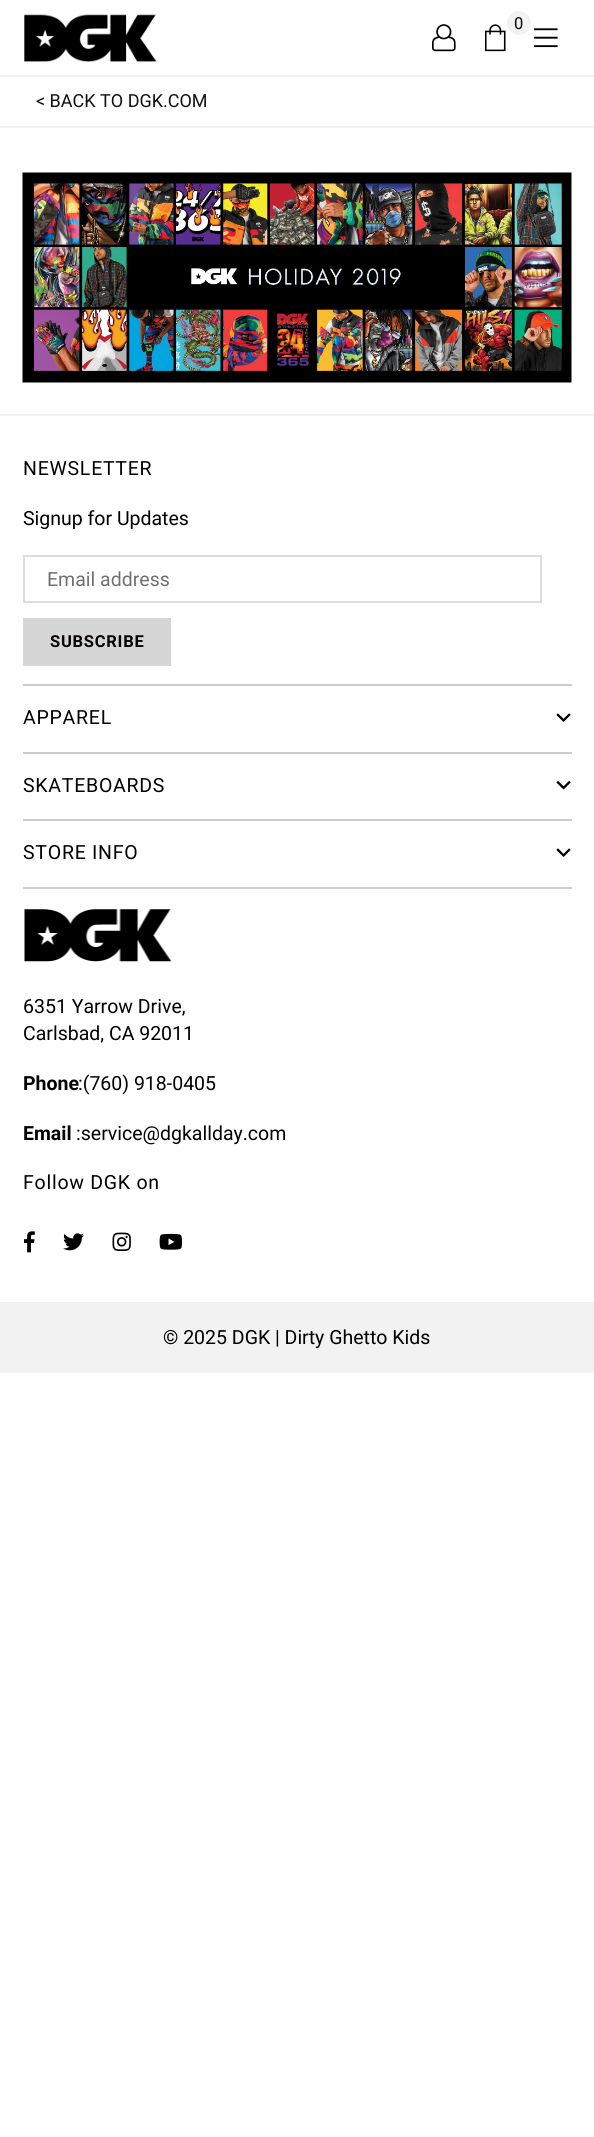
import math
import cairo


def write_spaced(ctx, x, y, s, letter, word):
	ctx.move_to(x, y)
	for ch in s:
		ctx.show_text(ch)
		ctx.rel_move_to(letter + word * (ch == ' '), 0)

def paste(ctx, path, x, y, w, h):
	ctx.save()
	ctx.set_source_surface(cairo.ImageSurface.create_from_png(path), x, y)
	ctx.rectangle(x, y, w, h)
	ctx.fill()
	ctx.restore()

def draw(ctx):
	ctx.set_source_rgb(1, 1, 1)
	ctx.paint()
	ctx.set_source_rgb(0.949, 0.949, 0.949)
	ctx.rectangle(0, 75, 594, 2)
	ctx.fill()
	paste(ctx, 'media/1.png', 24, 14, 133, 48)
	paste(ctx, 'media/2.png', 432, 24, 24, 28)
	paste(ctx, 'media/3.png', 485, 24, 21, 28)
	ctx.arc(519, 23, 12, 0, 2 * math.pi)
	ctx.fill()
	ctx.select_font_face('Roboto')
	ctx.set_font_size(16.5)
	ctx.set_source_rgb(0, 0, 0)
	ctx.move_to(514, 29)
	ctx.show_text('0')
	paste(ctx, 'media/4.png', 534, 28, 24, 20)
	ctx.set_source_rgb(0.949, 0.949, 0.949)
	ctx.rectangle(0, 126, 594, 2)
	ctx.fill()
	ctx.set_font_size(18)
	ctx.set_source_rgb(0.067, 0.067, 0.067)
	ctx.move_to(36, 107)
	ctx.show_text('< BACK TO DGK.COM')
	paste(ctx, 'media/5.png', 22, 172, 550, 211)
	ctx.set_source_rgb(0.949, 0.949, 0.949)
	ctx.rectangle(0, 414, 594, 2)
	ctx.fill()
	ctx.set_font_size(19.5)
	ctx.set_source_rgb(0, 0, 0)
	write_spaced(ctx, 23, 475, 'NEWSLETTER', 0.75, 0)
	ctx.move_to(23, 525)
	ctx.show_text('Signup for Updates')
	ctx.rectangle(24, 556, 517, 46)
	ctx.set_source_rgb(0.867, 0.867, 0.867)
	ctx.stroke()
	ctx.set_source_rgb(0.439, 0.439, 0.439)
	ctx.move_to(47, 586)
	ctx.show_text('Email address')
	ctx.set_source_rgb(0.839, 0.839, 0.839)
	ctx.rectangle(23, 618, 148, 48)
	ctx.fill()
	ctx.select_font_face('Roboto', cairo.FONT_SLANT_NORMAL, cairo.FONT_WEIGHT_BOLD)
	ctx.set_font_size(16.5)
	ctx.set_source_rgb(0.031, 0.004, 0.004)
	write_spaced(ctx, 50, 647, 'SUBSCRIBE', 0.75, 0)
	ctx.set_source_rgb(0.8, 0.8, 0.8)
	ctx.rectangle(23, 684, 549, 2)
	ctx.fill()
	ctx.select_font_face('Roboto')
	ctx.set_font_size(19.5)
	ctx.set_source_rgb(0, 0, 0)
	write_spaced(ctx, 23, 724, 'APPAREL', 0.75, 0)
	paste(ctx, 'media/6.png', 556, 713, 15, 9)
	ctx.set_source_rgb(0.8, 0.8, 0.8)
	ctx.rectangle(23, 752, 549, 2)
	ctx.fill()
	ctx.set_source_rgb(0, 0, 0)
	write_spaced(ctx, 23, 792, 'SKATEBOARDS', 0.75, 0)
	paste(ctx, 'media/7.png', 556, 781, 15, 9)
	ctx.set_source_rgb(0.8, 0.8, 0.8)
	ctx.rectangle(23, 819, 549, 2)
	ctx.fill()
	ctx.set_source_rgb(0, 0, 0)
	write_spaced(ctx, 23, 859, 'STORE INFO', 0.75, 0)
	paste(ctx, 'media/6.png', 556, 848, 15, 9)
	ctx.set_source_rgb(0.8, 0.8, 0.8)
	ctx.rectangle(23, 887, 549, 2)
	ctx.fill()
	paste(ctx, 'media/8.png', 24, 909, 148, 53)
	ctx.set_source_rgb(0, 0, 0)
	ctx.move_to(23, 1013)
	ctx.show_text('6351 Yarrow Drive,')
	ctx.move_to(23, 1040)
	ctx.show_text('Carlsbad, CA 92011')
	ctx.select_font_face('Roboto', cairo.FONT_SLANT_NORMAL, cairo.FONT_WEIGHT_BOLD)
	ctx.move_to(23, 1090)
	ctx.show_text('Phone')
	ctx.select_font_face('Roboto')
	ctx.move_to(78, 1090)
	ctx.show_text(':(760) 918-0405')
	ctx.select_font_face('Roboto', cairo.FONT_SLANT_NORMAL, cairo.FONT_WEIGHT_BOLD)
	ctx.move_to(23, 1140)
	ctx.show_text('Email')
	ctx.select_font_face('Roboto')
	ctx.move_to(76, 1140)
	ctx.show_text(':service@dgkallday.com')
	write_spaced(ctx, 23, 1189, 'Follow DGK on', 0.75, 0)
	paste(ctx, 'media/9.png', 24, 1231, 11, 22)
	paste(ctx, 'media/10.png', 63, 1233, 21, 18)
	paste(ctx, 'media/11.png', 112, 1232, 19, 19)
	paste(ctx, 'media/12.png', 159, 1233, 23, 17)
	ctx.set_source_rgb(0.949, 0.949, 0.949)
	ctx.rectangle(0, 1302, 594, 71)
	ctx.fill()
	ctx.set_source_rgb(0, 0, 0)
	ctx.move_to(163, 1344)
	ctx.show_text('© 2025 DGK | Dirty Ghetto Kids')


surface = cairo.ImageSurface(cairo.FORMAT_RGB24, 594, 2137)
ctx = cairo.Context(surface)
options = cairo.FontOptions()
options.set_hint_metrics(cairo.HINT_METRICS_OFF)
options.set_hint_style(cairo.HINT_STYLE_NONE)
ctx.set_font_options(options)
ctx.set_miter_limit(4)
draw(ctx)
surface.write_to_png('image.png')
